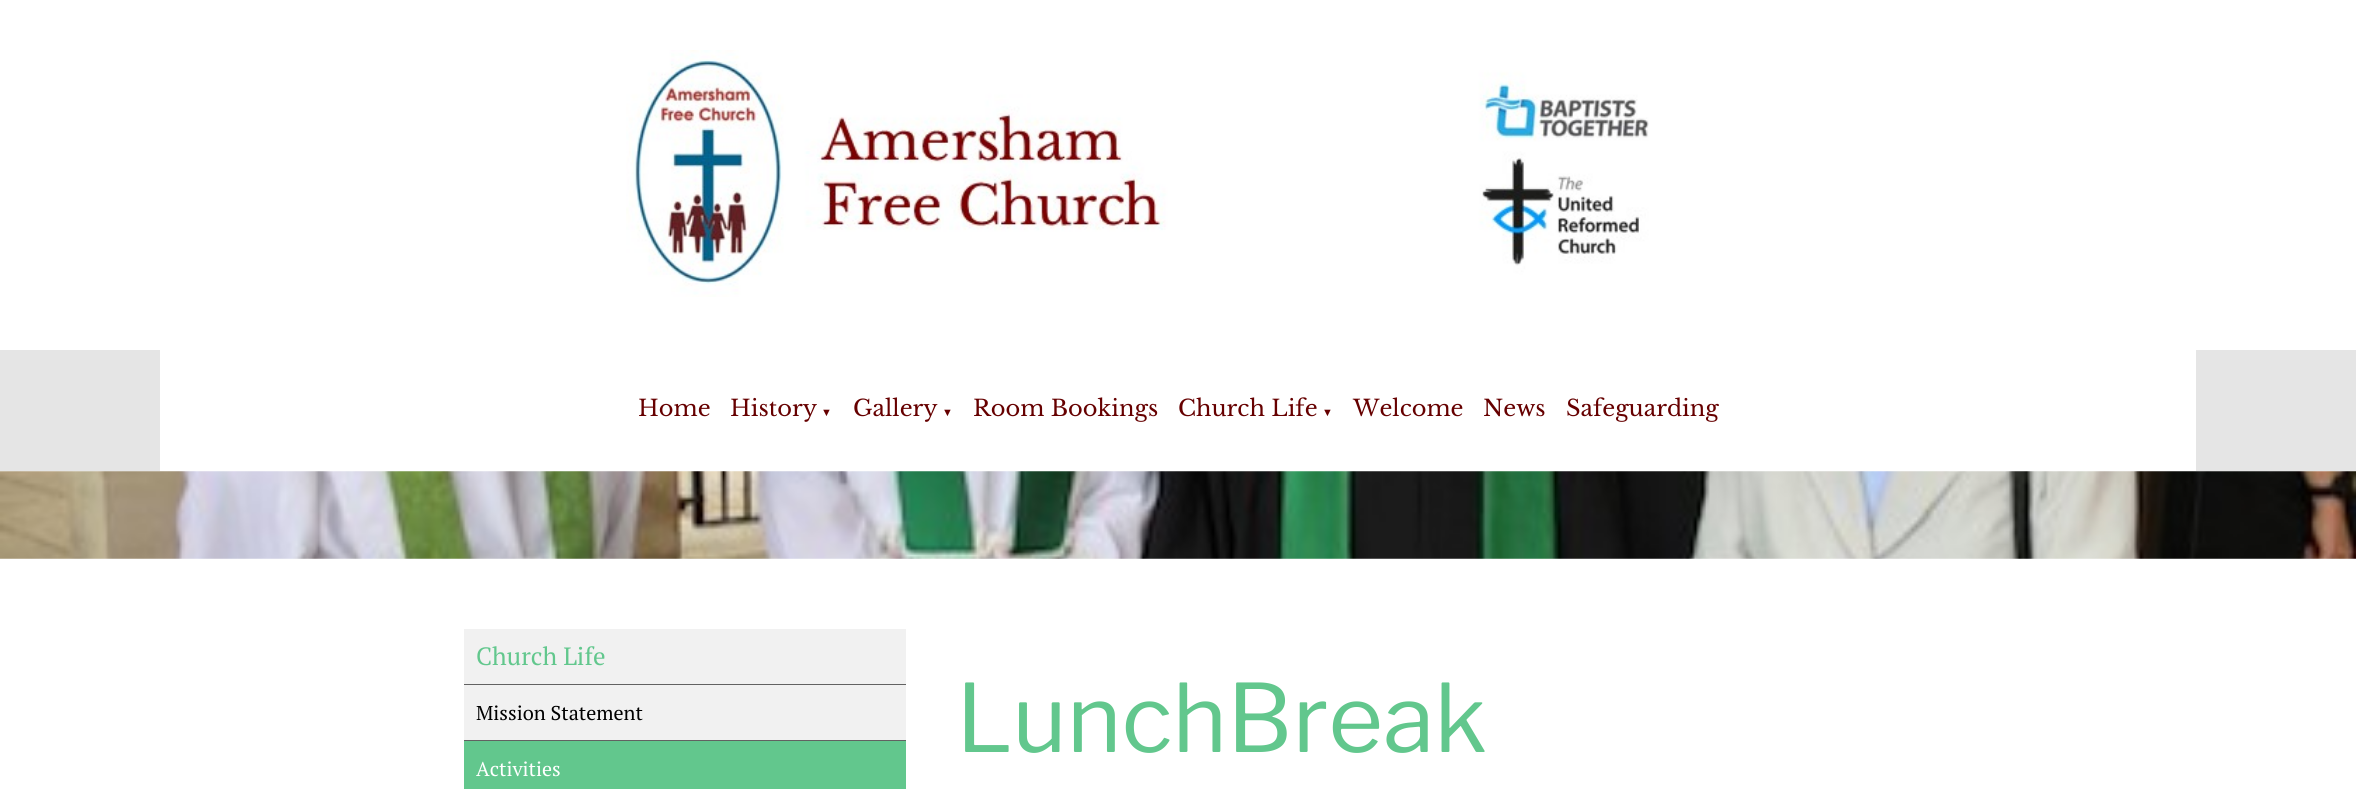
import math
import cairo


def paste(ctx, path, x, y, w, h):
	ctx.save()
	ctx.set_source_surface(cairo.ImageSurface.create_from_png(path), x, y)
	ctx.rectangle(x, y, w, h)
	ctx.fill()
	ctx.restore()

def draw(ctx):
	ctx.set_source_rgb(1, 1, 1)
	ctx.paint()
	paste(ctx, 'media/1.png', 626, 50, 1023, 247)
	ctx.set_source_rgb(0.898, 0.898, 0.898)
	ctx.rectangle(0, 350, 2356, 121)
	ctx.fill()
	ctx.set_source_rgb(1, 1, 1)
	ctx.rectangle(160, 350, 2036, 121)
	ctx.fill()
	ctx.select_font_face('Libre Baskerville')
	ctx.set_font_size(22.5)
	ctx.set_source_rgb(0.4, 0, 0)
	ctx.move_to(638, 416)
	ctx.show_text('Home')
	ctx.move_to(730, 416)
	ctx.show_text('History')
	ctx.select_font_face('Liberation Serif')
	ctx.set_font_size(11)
	ctx.move_to(821, 416)
	ctx.show_text('▼')
	ctx.select_font_face('Libre Baskerville')
	ctx.set_font_size(22.5)
	ctx.move_to(853, 416)
	ctx.show_text('Gallery')
	ctx.select_font_face('Liberation Serif')
	ctx.set_font_size(11)
	ctx.move_to(942, 416)
	ctx.show_text('▼')
	ctx.select_font_face('Libre Baskerville')
	ctx.set_font_size(22.5)
	ctx.move_to(973, 416)
	ctx.show_text('Room Bookings')
	ctx.move_to(1178, 416)
	ctx.show_text('Church Life')
	ctx.select_font_face('Liberation Serif')
	ctx.set_font_size(11)
	ctx.move_to(1322, 416)
	ctx.show_text('▼')
	ctx.select_font_face('Libre Baskerville')
	ctx.set_font_size(22.5)
	for x, y, s in [
		(1353, 416, 'Welcome'),
		(1483, 416, 'News'),
		(1566, 416, 'Safeguarding'),
	]:
		ctx.move_to(x, y)
		ctx.show_text(s)
	paste(ctx, 'media/2.png', 0, 471, 2356, 88)
	ctx.set_source_rgb(0.945, 0.945, 0.945)
	ctx.rectangle(464, 629, 442, 111)
	ctx.fill()
	ctx.set_source_rgb(0.384, 0.384, 0.384)
	ctx.rectangle(464, 684, 442, 1)
	ctx.fill()
	ctx.select_font_face('PT Serif')
	ctx.set_font_size(25)
	ctx.set_source_rgb(0.384, 0.78, 0.553)
	ctx.move_to(476, 665)
	ctx.show_text('Church Life')
	ctx.set_source_rgb(0.384, 0.384, 0.384)
	ctx.rectangle(464, 740, 442, 1)
	ctx.fill()
	ctx.set_font_size(20)
	ctx.set_source_rgb(0, 0, 0)
	ctx.move_to(476, 720)
	ctx.show_text('Mission Statement')
	ctx.set_source_rgb(0.384, 0.78, 0.553)
	ctx.rectangle(464, 741, 442, 48)
	ctx.fill()
	ctx.set_source_rgb(1, 1, 1)
	ctx.move_to(476, 776)
	ctx.show_text('Activities')
	ctx.select_font_face('Libre Franklin')
	ctx.set_font_size(93.75)
	ctx.set_source_rgb(0.384, 0.78, 0.553)
	ctx.move_to(956, 752)
	ctx.show_text('LunchBreak')


surface = cairo.ImageSurface(cairo.FORMAT_RGB24, 2356, 789)
ctx = cairo.Context(surface)
options = cairo.FontOptions()
options.set_hint_metrics(cairo.HINT_METRICS_OFF)
options.set_hint_style(cairo.HINT_STYLE_NONE)
ctx.set_font_options(options)
ctx.set_miter_limit(4)
draw(ctx)
surface.write_to_png('image.png')
